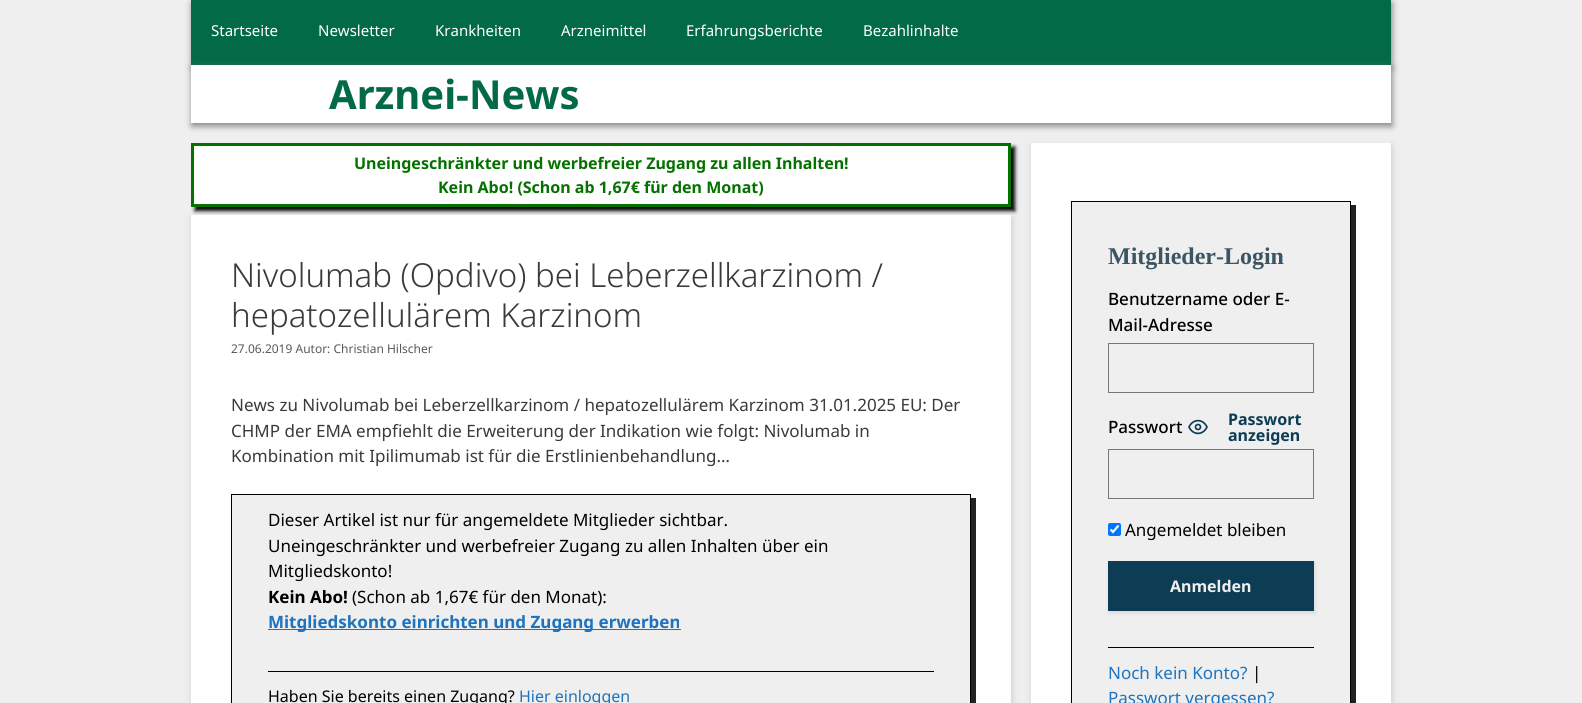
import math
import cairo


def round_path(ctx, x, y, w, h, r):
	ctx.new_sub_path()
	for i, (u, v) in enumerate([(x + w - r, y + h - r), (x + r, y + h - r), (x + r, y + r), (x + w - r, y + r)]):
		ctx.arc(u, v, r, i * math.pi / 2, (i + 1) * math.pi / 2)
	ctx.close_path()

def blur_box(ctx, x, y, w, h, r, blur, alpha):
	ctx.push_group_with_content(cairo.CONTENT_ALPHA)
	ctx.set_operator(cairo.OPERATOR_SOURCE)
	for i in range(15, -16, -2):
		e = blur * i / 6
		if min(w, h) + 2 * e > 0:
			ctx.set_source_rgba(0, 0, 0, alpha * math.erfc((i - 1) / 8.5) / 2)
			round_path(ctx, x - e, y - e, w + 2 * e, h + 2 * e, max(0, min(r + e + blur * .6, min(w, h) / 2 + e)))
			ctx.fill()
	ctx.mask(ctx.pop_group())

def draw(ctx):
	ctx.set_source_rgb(0.937, 0.937, 0.937)
	ctx.paint()
	ctx.set_source_rgb(0.502, 0.502, 0.502)
	blur_box(ctx, 192, 3, 1200, 65, 0, 3.5, 1)
	ctx.set_source_rgb(0.008, 0.416, 0.278)
	ctx.rectangle(191, 0, 1200, 65)
	ctx.fill()
	ctx.select_font_face('Noto Sans')
	ctx.set_font_size(15)
	ctx.set_source_rgb(1, 1, 1)
	for x, y, s in [
		(211, 36, 'Startseite'),
		(318, 36, 'Newsletter'),
		(435, 36, 'Krankheiten'),
		(561, 36, 'Arzneimittel'),
		(686, 36, 'Erfahrungsberichte'),
		(863, 36, 'Bezahlinhalte'),
	]:
		ctx.move_to(x, y)
		ctx.show_text(s)
	ctx.set_source_rgb(0.502, 0.502, 0.502)
	blur_box(ctx, 192, 68, 1200, 58, 0, 3.5, 1)
	ctx.set_source_rgb(1, 1, 1)
	ctx.rectangle(191, 65, 1200, 58)
	ctx.fill()
	ctx.select_font_face('Noto Sans', cairo.FONT_SLANT_NORMAL, cairo.FONT_WEIGHT_BOLD)
	ctx.set_font_size(40)
	ctx.set_source_rgb(0.008, 0.416, 0.278)
	ctx.move_to(329, 109)
	ctx.show_text('Arznei-News')
	ctx.set_source_rgb(0, 0, 0)
	blur_box(ctx, 195, 147, 820, 64, 0, 2, 1)
	ctx.set_source_rgb(1, 1, 1)
	ctx.rectangle(192.5, 144.5, 817, 61)
	ctx.fill_preserve()
	ctx.set_source_rgb(0.02, 0.443, 0)
	ctx.set_line_width(3)
	ctx.stroke()
	ctx.set_font_size(16)
	ctx.move_to(354, 169)
	ctx.show_text('Uneingeschränkter und werbefreier Zugang zu allen Inhalten!')
	ctx.move_to(438, 193)
	ctx.show_text('Kein Abo! (Schon ab 1,67€ für den Monat)')
	ctx.set_source_rgb(0.8, 0.8, 0.8)
	blur_box(ctx, 192, 218, 820, 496, 0, 3.5, 1)
	ctx.set_source_rgb(1, 1, 1)
	ctx.rectangle(191, 215, 820, 488)
	ctx.fill()
	ctx.select_font_face('Noto Sans Light')
	ctx.set_font_size(33)
	ctx.set_source_rgb(0.227, 0.227, 0.227)
	ctx.move_to(231, 287)
	ctx.show_text('Nivolumab (Opdivo) bei Leberzellkarzinom /')
	ctx.move_to(231, 327)
	ctx.show_text('hepatozellulärem Karzinom')
	ctx.select_font_face('Noto Sans')
	ctx.set_font_size(12)
	ctx.set_source_rgb(0.349, 0.349, 0.349)
	ctx.move_to(231, 353)
	ctx.show_text('27.06.2019 Autor: Christian Hilscher')
	ctx.set_font_size(17)
	ctx.set_source_rgb(0.227, 0.227, 0.227)
	for x, y, s in [
		(231, 411, 'News zu Nivolumab bei Leberzellkarzinom / hepatozellulärem Karzinom 31.01.2025 EU: Der'),
		(231, 437, 'CHMP der EMA empfiehlt die Erweiterung der Indikation wie folgt: Nivolumab in'),
		(231, 462, 'Kombination mit Ipilimumab ist für die Erstlinienbehandlung…'),
	]:
		ctx.move_to(x, y)
		ctx.show_text(s)
	ctx.set_source_rgb(0.133, 0.133, 0.133)
	ctx.new_path()
	ctx.move_to(236, 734)
	ctx.line_to(236, 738)
	ctx.line_to(976, 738)
	ctx.line_to(976, 498)
	ctx.line_to(971, 498)
	ctx.line_to(971, 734)
	ctx.close_path()
	ctx.fill()
	ctx.set_source_rgb(0.937, 0.937, 0.937)
	ctx.rectangle(231.5, 494.5, 739, 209)
	ctx.fill_preserve()
	ctx.set_source_rgb(0, 0, 0)
	ctx.set_line_width(1)
	ctx.stroke()
	for x, y, s in [
		(268, 526, 'Dieser Artikel ist nur für angemeldete Mitglieder sichtbar.'),
		(268, 552, 'Uneingeschränkter und werbefreier Zugang zu allen Inhalten über ein'),
		(268, 577, 'Mitgliedskonto!'),
	]:
		ctx.move_to(x, y)
		ctx.show_text(s)
	ctx.select_font_face('Noto Sans', cairo.FONT_SLANT_NORMAL, cairo.FONT_WEIGHT_BOLD)
	ctx.move_to(268, 603)
	ctx.show_text('Kein Abo!')
	ctx.select_font_face('Noto Sans')
	ctx.move_to(352, 603)
	ctx.show_text('(Schon ab 1,67€ für den Monat):')
	ctx.set_source_rgb(0.118, 0.451, 0.745)
	ctx.rectangle(268, 629, 413, 1)
	ctx.fill()
	ctx.select_font_face('Noto Sans', cairo.FONT_SLANT_NORMAL, cairo.FONT_WEIGHT_BOLD)
	ctx.move_to(268, 628)
	ctx.show_text('Mitgliedskonto einrichten und Zugang erwerben')
	ctx.set_source_rgb(0, 0, 0)
	ctx.rectangle(268, 671, 666, 1)
	ctx.fill()
	ctx.select_font_face('Noto Sans')
	ctx.set_font_size(16)
	ctx.move_to(268, 702)
	ctx.show_text('Haben Sie bereits einen Zugang?')
	ctx.set_source_rgb(0.118, 0.451, 0.745)
	ctx.move_to(519, 702)
	ctx.show_text('Hier einloggen')
	ctx.set_source_rgb(0.8, 0.8, 0.8)
	blur_box(ctx, 1032, 146, 360, 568, 0, 3.5, 1)
	ctx.set_source_rgb(1, 1, 1)
	ctx.rectangle(1031, 143, 360, 560)
	ctx.fill()
	ctx.set_source_rgb(0.133, 0.133, 0.133)
	ctx.new_path()
	ctx.move_to(1076, 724)
	ctx.line_to(1076, 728)
	ctx.line_to(1356, 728)
	ctx.line_to(1356, 205)
	ctx.line_to(1351, 205)
	ctx.line_to(1351, 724)
	ctx.close_path()
	ctx.fill()
	ctx.set_source_rgb(0.937, 0.937, 0.937)
	ctx.rectangle(1071.5, 201.5, 279, 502)
	ctx.fill_preserve()
	ctx.set_source_rgb(0, 0, 0)
	ctx.stroke()
	ctx.select_font_face('Liberation Serif', cairo.FONT_SLANT_NORMAL, cairo.FONT_WEIGHT_BOLD)
	ctx.set_font_size(24)
	ctx.set_source_rgb(0.231, 0.333, 0.388)
	ctx.move_to(1108, 264)
	ctx.show_text('Mitglieder-Login')
	ctx.select_font_face('Noto Sans Medium')
	ctx.set_font_size(17)
	ctx.set_source_rgb(0, 0, 0)
	ctx.move_to(1108, 305)
	ctx.show_text('Benutzername oder E-')
	ctx.move_to(1108, 331)
	ctx.show_text('Mail-Adresse')
	ctx.rectangle(1108.5, 343.5, 205, 49)
	ctx.set_source_rgb(0.467, 0.467, 0.467)
	ctx.stroke()
	ctx.set_source_rgb(0, 0, 0)
	ctx.move_to(1108, 433)
	ctx.show_text('Passwort')
	ctx.new_path()
	ctx.move_to(1189, 427)
	ctx.curve_to(1193, 418.5, 1203, 418.5, 1207, 427)
	ctx.curve_to(1203, 435.5, 1193, 435.5, 1189, 427)
	ctx.close_path()
	ctx.set_source_rgb(0.047, 0.239, 0.329)
	ctx.set_line_width(1.7)
	ctx.set_line_cap(cairo.LINE_CAP_ROUND)
	ctx.set_line_join(cairo.LINE_JOIN_ROUND)
	ctx.stroke()
	ctx.arc(1198, 427, 2.5, 0, 2 * math.pi)
	ctx.set_line_cap(cairo.LINE_CAP_BUTT)
	ctx.set_line_join(cairo.LINE_JOIN_MITER)
	ctx.stroke()
	ctx.select_font_face('Noto Sans', cairo.FONT_SLANT_NORMAL, cairo.FONT_WEIGHT_BOLD)
	ctx.set_font_size(16)
	ctx.move_to(1228, 425)
	ctx.show_text('Passwort')
	ctx.move_to(1228, 441)
	ctx.show_text('anzeigen')
	ctx.rectangle(1108.5, 449.5, 205, 49)
	ctx.set_source_rgb(0.467, 0.467, 0.467)
	ctx.set_line_width(1)
	ctx.stroke()
	ctx.set_source_rgb(0, 0.459, 1)
	round_path(ctx, 1108, 523, 13, 13, 2)
	ctx.fill()
	ctx.new_path()
	ctx.move_to(1110.5, 529.5)
	ctx.line_to(1113, 532)
	ctx.line_to(1118.5, 525.5)
	ctx.set_source_rgb(1, 1, 1)
	ctx.set_line_width(2.1)
	ctx.stroke()
	ctx.select_font_face('Noto Sans')
	ctx.set_font_size(17)
	ctx.set_source_rgb(0, 0, 0)
	ctx.move_to(1125, 536)
	ctx.show_text('Angemeldet bleiben')
	ctx.set_source_rgb(0, 0, 0)
	blur_box(ctx, 1109, 563, 206, 50, 0, 2, 0.1)
	ctx.set_source_rgb(0.047, 0.239, 0.329)
	ctx.rectangle(1108, 561, 206, 50)
	ctx.fill()
	ctx.select_font_face('Noto Sans', cairo.FONT_SLANT_NORMAL, cairo.FONT_WEIGHT_BOLD)
	ctx.set_font_size(16)
	ctx.set_source_rgb(0.937, 0.937, 0.937)
	ctx.move_to(1170, 592)
	ctx.show_text('Anmelden')
	ctx.set_source_rgb(0, 0, 0)
	ctx.rectangle(1108, 647, 206, 1)
	ctx.fill()
	ctx.select_font_face('Noto Sans')
	ctx.set_font_size(17)
	ctx.set_source_rgb(0.118, 0.451, 0.745)
	ctx.move_to(1108, 679)
	ctx.show_text('Noch kein Konto?')
	ctx.set_source_rgb(0, 0, 0)
	ctx.move_to(1252, 679)
	ctx.show_text('|')
	ctx.set_source_rgb(0.118, 0.451, 0.745)
	ctx.move_to(1108, 704)
	ctx.show_text('Passwort vergessen?')


surface = cairo.ImageSurface(cairo.FORMAT_RGB24, 1582, 703)
ctx = cairo.Context(surface)
options = cairo.FontOptions()
options.set_hint_metrics(cairo.HINT_METRICS_OFF)
options.set_hint_style(cairo.HINT_STYLE_NONE)
ctx.set_font_options(options)
ctx.set_miter_limit(4)
draw(ctx)
surface.write_to_png('image.png')
